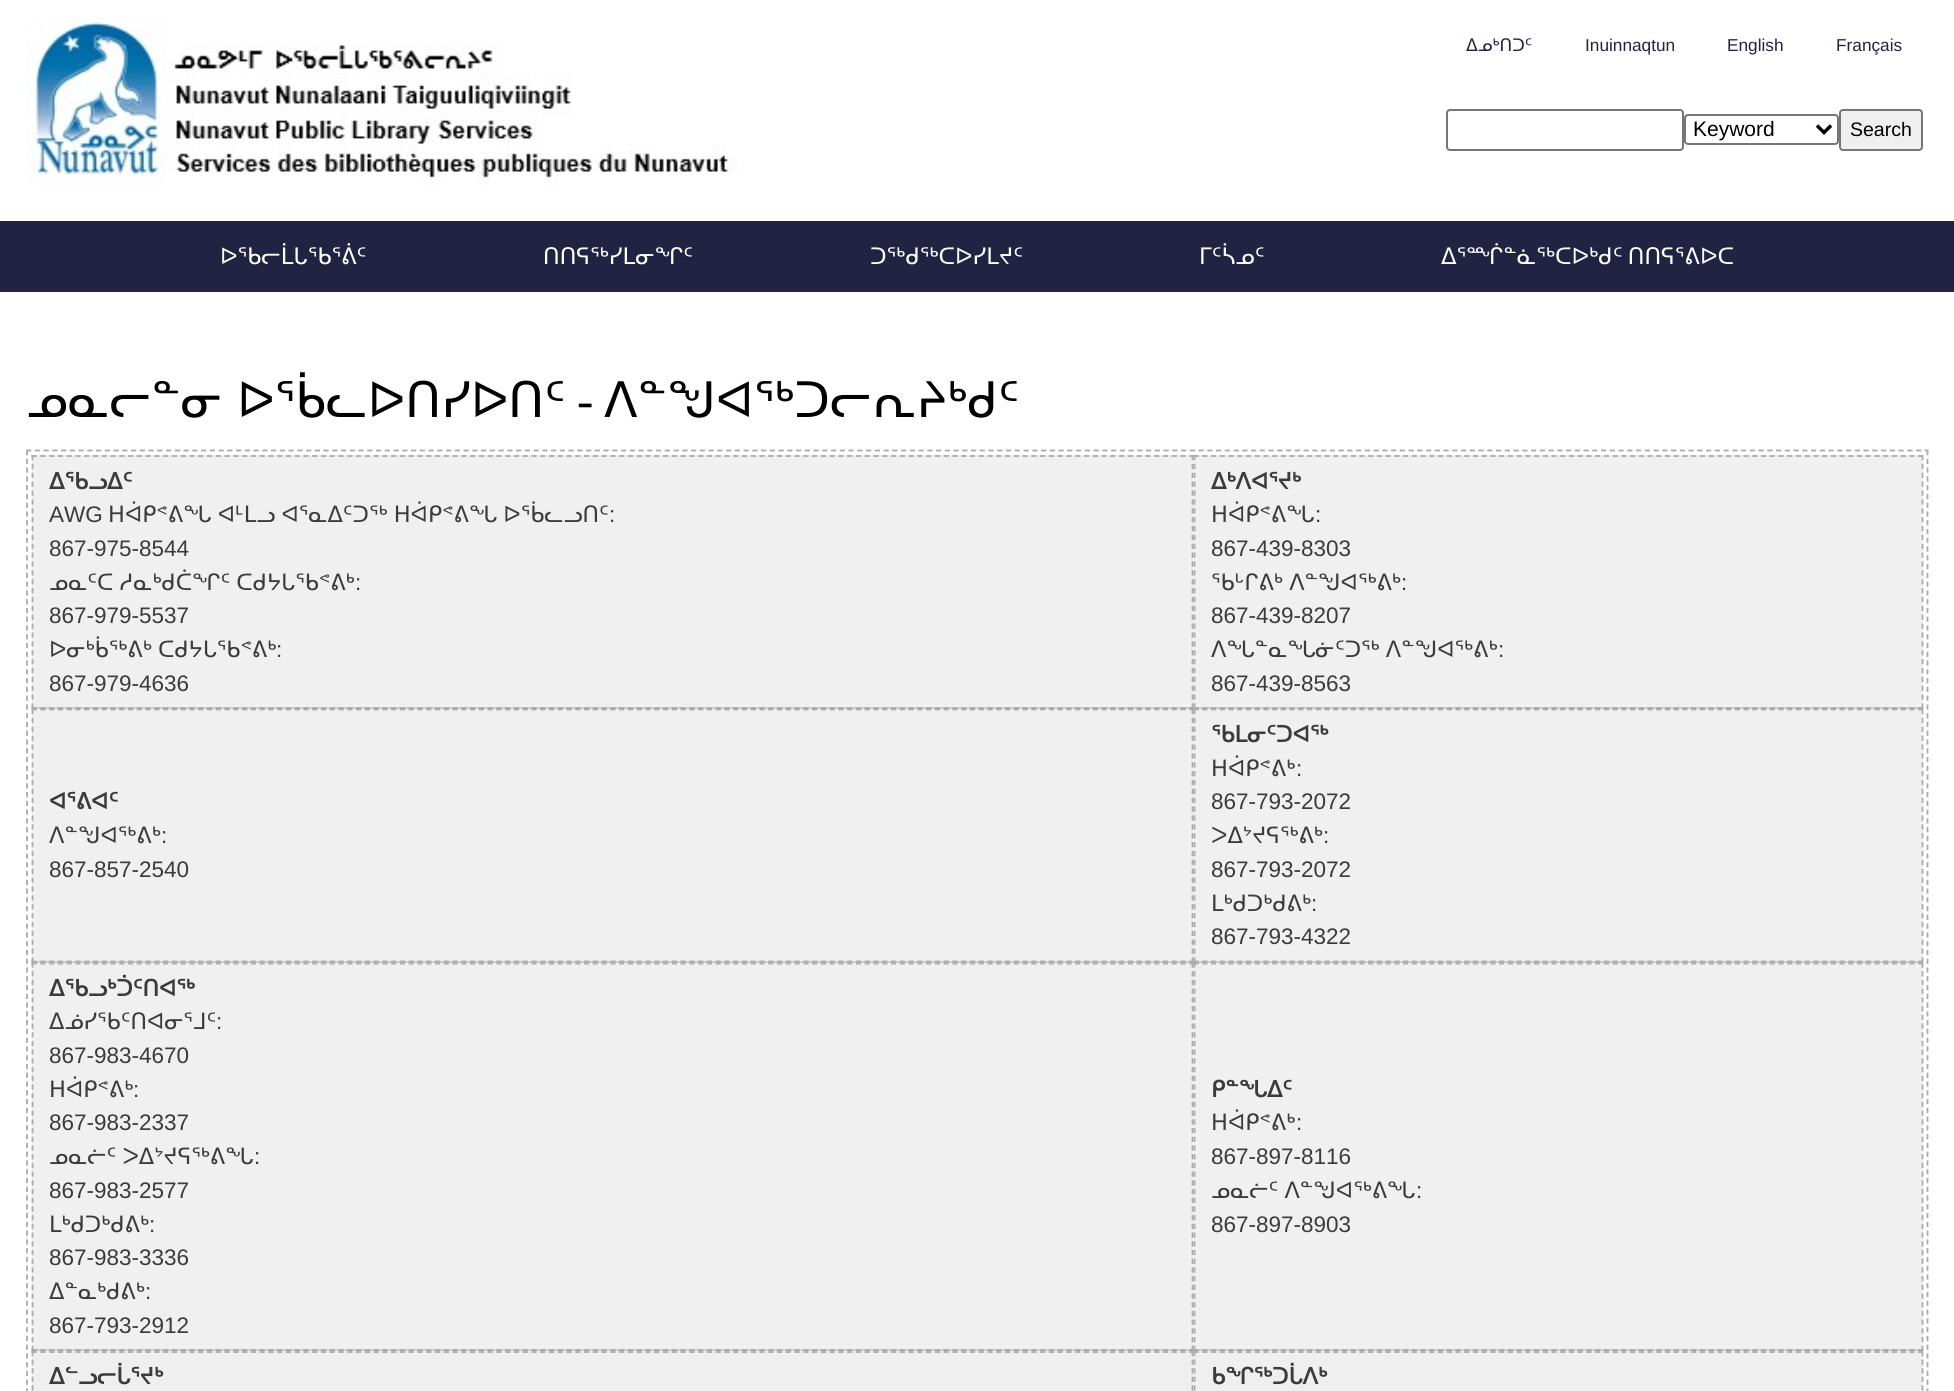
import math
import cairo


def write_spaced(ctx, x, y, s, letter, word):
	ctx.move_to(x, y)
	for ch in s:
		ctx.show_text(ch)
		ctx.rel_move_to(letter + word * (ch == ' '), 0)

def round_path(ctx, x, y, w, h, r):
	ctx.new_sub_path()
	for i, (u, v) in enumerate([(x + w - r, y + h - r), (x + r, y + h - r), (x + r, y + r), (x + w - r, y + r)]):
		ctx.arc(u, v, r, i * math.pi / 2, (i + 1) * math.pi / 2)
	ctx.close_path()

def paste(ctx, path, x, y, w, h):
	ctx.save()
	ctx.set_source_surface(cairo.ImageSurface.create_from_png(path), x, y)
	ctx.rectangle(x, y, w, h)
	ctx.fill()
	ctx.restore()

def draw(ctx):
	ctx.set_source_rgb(1, 1, 1)
	ctx.paint()
	paste(ctx, 'media/1.png', 26, 18, 712, 168)
	ctx.select_font_face('DejaVu Sans')
	ctx.set_font_size(17.25)
	ctx.set_source_rgb(0.133, 0.137, 0.259)
	ctx.move_to(1466, 51)
	ctx.show_text('ᐃᓄᒃᑎᑐᑦ')
	ctx.select_font_face('Liberation Sans')
	for x, y, s in [
		(1585, 51, 'Inuinnaqtun'),
		(1727, 51, 'English'),
		(1836, 51, 'Français'),
	]:
		ctx.move_to(x, y)
		ctx.show_text(s)
	round_path(ctx, 1447, 110, 236, 40, 3)
	ctx.set_source_rgb(0.463, 0.463, 0.463)
	ctx.stroke()
	round_path(ctx, 1685, 115, 153, 29, 3)
	ctx.stroke()
	ctx.new_path()
	ctx.move_to(1817, 125.5)
	ctx.line_to(1824, 132.5)
	ctx.line_to(1831, 125.5)
	ctx.set_source_rgb(0, 0, 0)
	ctx.set_line_width(3.5)
	ctx.stroke()
	ctx.set_font_size(21)
	ctx.move_to(1693, 136)
	ctx.show_text('Keyword')
	ctx.set_source_rgb(0.937, 0.937, 0.937)
	round_path(ctx, 1840, 110, 82, 40, 3)
	ctx.fill_preserve()
	ctx.set_source_rgb(0.463, 0.463, 0.463)
	ctx.set_line_width(2)
	ctx.stroke()
	ctx.set_font_size(19.5)
	ctx.set_source_rgb(0, 0, 0)
	ctx.move_to(1850, 136)
	ctx.show_text('Search')
	ctx.set_source_rgb(0.133, 0.137, 0.259)
	ctx.rectangle(0, 221, 1954, 71)
	ctx.fill()
	ctx.select_font_face('DejaVu Sans')
	ctx.set_font_size(22.75)
	ctx.set_source_rgb(1, 1, 1)
	for x, y, s in [
		(220, 264, 'ᐅᖃᓕᒫᒐᖃᕐᕖᑦ'),
		(543, 264, 'ᑎᑎᕋᖅᓯᒪᓂᖏᑦ'),
		(870, 264, 'ᑐᖅᑯᖅᑕᐅᓯᒪᔪᑦ'),
		(1199, 264, 'ᒥᑦᓵᓄᑦ'),
	]:
		ctx.move_to(x, y)
		ctx.show_text(s)
	write_spaced(ctx, 1441, 264, 'ᐃᕐᙲᓐᓈᖅᑕᐅᒃᑯᑦ ᑎᑎᕋᕐᕕᐅᑕ', 0, -2)
	ctx.set_font_size(49)
	ctx.set_source_rgb(0, 0, 0)
	write_spaced(ctx, 26, 417, 'ᓄᓇᓕᓐᓂ ᐅᖄᓚᐅᑎᓯᐅᑎᑦ', 0, -1)
	ctx.select_font_face('Liberation Serif')
	ctx.move_to(577, 417)
	ctx.show_text('-')
	ctx.select_font_face('DejaVu Sans')
	ctx.move_to(604, 417)
	ctx.show_text('ᐱᓐᖑᐊᖅᑐᓕᕆᔨᒃᑯᑦ')
	ctx.new_path()
	ctx.move_to(26, 450.5)
	ctx.line_to(1928.5, 450.5)
	ctx.set_source_rgb(0.667, 0.667, 0.667)
	ctx.set_line_width(1.8)
	ctx.set_dash([5.25, 3.5])
	ctx.stroke()
	ctx.new_path()
	ctx.move_to(1927.5, 450)
	ctx.line_to(1927.5, 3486)
	ctx.set_dash([5.25, 3.52])
	ctx.stroke()
	ctx.new_path()
	ctx.move_to(27, 450)
	ctx.line_to(27, 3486)
	ctx.stroke()
	ctx.set_source_rgb(0.941, 0.941, 0.941)
	ctx.rectangle(32, 455, 1891, 252)
	ctx.fill()
	ctx.set_source_rgb(0.8, 0.8, 0.8)
	ctx.rectangle(32, 707, 1891, 2)
	ctx.fill()
	ctx.new_path()
	ctx.move_to(31.5, 456)
	ctx.line_to(1193.5, 456)
	ctx.set_source_rgb(0.667, 0.667, 0.667)
	ctx.stroke()
	ctx.new_path()
	ctx.move_to(1192.5, 455)
	ctx.line_to(1192.5, 709)
	ctx.set_dash([5.25, 3.62])
	ctx.stroke()
	ctx.new_path()
	ctx.move_to(31.5, 708)
	ctx.line_to(1193.5, 708)
	ctx.set_dash([5.25, 3.52])
	ctx.stroke()
	ctx.new_path()
	ctx.move_to(32.5, 455)
	ctx.line_to(32.5, 709)
	ctx.set_dash([5.25, 3.62])
	ctx.stroke()
	ctx.select_font_face('DejaVu Sans', cairo.FONT_SLANT_NORMAL, cairo.FONT_WEIGHT_BOLD)
	ctx.set_font_size(22.5)
	ctx.set_source_rgb(0.231, 0.231, 0.231)
	ctx.move_to(49, 489)
	ctx.show_text('ᐃᖃᓗᐃᑦ')
	ctx.select_font_face('Liberation Sans')
	ctx.move_to(49, 522)
	ctx.show_text('AWG')
	ctx.select_font_face('DejaVu Sans')
	write_spaced(ctx, 108, 522, 'ᕼᐋᑭᕝᕕᖓ ᐊᒻᒪᓗ ᐊᕐᓇᐃᑦᑐᖅ ᕼᐋᑭᕝᕕᖓ ᐅᖄᓚᓗᑎᑦ', 0, -1)
	ctx.select_font_face('Liberation Sans')
	ctx.move_to(609, 522)
	ctx.show_text(':')
	ctx.move_to(49, 556)
	ctx.show_text('867-975-8544')
	ctx.select_font_face('DejaVu Sans')
	write_spaced(ctx, 49, 590, 'ᓄᓇᑦᑕ ᓱᓇᒃᑯᑖᖏᑦ ᑕᑯᔭᒐᖃᕝᕕᒃ', 0, -1)
	ctx.select_font_face('Liberation Sans')
	ctx.move_to(355, 590)
	ctx.show_text(':')
	ctx.move_to(49, 623)
	ctx.show_text('867-979-5537')
	ctx.select_font_face('DejaVu Sans')
	write_spaced(ctx, 49, 657, 'ᐅᓂᒃᑳᖅᕕᒃ ᑕᑯᔭᒐᖃᕝᕕᒃ', 0, -1)
	ctx.select_font_face('Liberation Sans')
	ctx.move_to(276, 657)
	ctx.show_text(':')
	ctx.move_to(49, 691)
	ctx.show_text('867-979-4636')
	ctx.new_path()
	ctx.move_to(1193.5, 456)
	ctx.line_to(1923, 456)
	ctx.set_source_rgb(0.667, 0.667, 0.667)
	ctx.set_dash([5.25, 3.48])
	ctx.stroke()
	ctx.new_path()
	ctx.move_to(1922.5, 455)
	ctx.line_to(1922.5, 709)
	ctx.set_dash([5.25, 3.62])
	ctx.stroke()
	ctx.new_path()
	ctx.move_to(1193.5, 708)
	ctx.line_to(1923, 708)
	ctx.set_dash([5.25, 3.48])
	ctx.stroke()
	ctx.new_path()
	ctx.move_to(1194.5, 455)
	ctx.line_to(1194.5, 709)
	ctx.set_dash([5.25, 3.62])
	ctx.stroke()
	ctx.select_font_face('DejaVu Sans', cairo.FONT_SLANT_NORMAL, cairo.FONT_WEIGHT_BOLD)
	ctx.set_source_rgb(0.231, 0.231, 0.231)
	ctx.move_to(1211, 489)
	ctx.show_text('ᐃᒃᐱᐊᕐᔪᒃ')
	ctx.select_font_face('DejaVu Sans')
	ctx.move_to(1211, 522)
	ctx.show_text('ᕼᐋᑭᕝᕕᖓ')
	ctx.select_font_face('Liberation Sans')
	ctx.move_to(1315, 522)
	ctx.show_text(':')
	ctx.move_to(1211, 556)
	ctx.show_text('867-439-8303')
	ctx.select_font_face('DejaVu Sans')
	write_spaced(ctx, 1211, 590, 'ᖃᒡᒋᕕᒃ ᐱᓐᖑᐊᖅᕕᒃ', 0, -1)
	ctx.select_font_face('Liberation Sans')
	ctx.move_to(1401, 590)
	ctx.show_text(':')
	ctx.move_to(1211, 623)
	ctx.show_text('867-439-8207')
	ctx.select_font_face('DejaVu Sans')
	write_spaced(ctx, 1211, 657, 'ᐱᖓᓐᓇᖓᓃᑦᑐᖅ ᐱᓐᖑᐊᖅᕕᒃ', 0, -1)
	ctx.select_font_face('Liberation Sans')
	ctx.move_to(1498, 657)
	ctx.show_text(':')
	ctx.move_to(1211, 691)
	ctx.show_text('867-439-8563')
	ctx.set_source_rgb(0.941, 0.941, 0.941)
	ctx.rectangle(32, 709, 1891, 252)
	ctx.fill()
	ctx.set_source_rgb(0.8, 0.8, 0.8)
	ctx.rectangle(32, 961, 1891, 2)
	ctx.fill()
	ctx.new_path()
	ctx.move_to(31.5, 709.5)
	ctx.line_to(1193.5, 709.5)
	ctx.set_source_rgb(0.667, 0.667, 0.667)
	ctx.set_dash([5.25, 3.52])
	ctx.stroke()
	ctx.new_path()
	ctx.move_to(1192.5, 709)
	ctx.line_to(1192.5, 962.5)
	ctx.set_dash([5.25, 3.62])
	ctx.stroke()
	ctx.new_path()
	ctx.move_to(31.5, 961.5)
	ctx.line_to(1193.5, 961.5)
	ctx.set_dash([5.25, 3.52])
	ctx.stroke()
	ctx.new_path()
	ctx.move_to(32.5, 709)
	ctx.line_to(32.5, 962.5)
	ctx.set_dash([5.25, 3.62])
	ctx.stroke()
	ctx.select_font_face('DejaVu Sans', cairo.FONT_SLANT_NORMAL, cairo.FONT_WEIGHT_BOLD)
	ctx.set_source_rgb(0.231, 0.231, 0.231)
	ctx.move_to(49, 809)
	ctx.show_text('ᐊᕐᕕᐊᑦ')
	ctx.select_font_face('DejaVu Sans')
	ctx.move_to(49, 843)
	ctx.show_text('ᐱᓐᖑᐊᖅᕕᒃ')
	ctx.select_font_face('Liberation Sans')
	ctx.move_to(161, 843)
	ctx.show_text(':')
	ctx.move_to(49, 877)
	ctx.show_text('867-857-2540')
	ctx.new_path()
	ctx.move_to(1193.5, 709.5)
	ctx.line_to(1923, 709.5)
	ctx.set_source_rgb(0.667, 0.667, 0.667)
	ctx.set_dash([5.25, 3.48])
	ctx.stroke()
	ctx.new_path()
	ctx.move_to(1922.5, 709)
	ctx.line_to(1922.5, 962.5)
	ctx.set_dash([5.25, 3.62])
	ctx.stroke()
	ctx.new_path()
	ctx.move_to(1193.5, 961.5)
	ctx.line_to(1923, 961.5)
	ctx.set_dash([5.25, 3.48])
	ctx.stroke()
	ctx.new_path()
	ctx.move_to(1194.5, 709)
	ctx.line_to(1194.5, 962.5)
	ctx.set_dash([5.25, 3.62])
	ctx.stroke()
	ctx.select_font_face('DejaVu Sans', cairo.FONT_SLANT_NORMAL, cairo.FONT_WEIGHT_BOLD)
	ctx.set_source_rgb(0.231, 0.231, 0.231)
	ctx.move_to(1211, 742)
	ctx.show_text('ᖃᒪᓂᑦᑐᐊᖅ')
	ctx.select_font_face('DejaVu Sans')
	ctx.move_to(1211, 776)
	ctx.show_text('ᕼᐋᑭᕝᕕᒃ')
	ctx.select_font_face('Liberation Sans')
	ctx.move_to(1296, 776)
	ctx.show_text(':')
	ctx.move_to(1211, 809)
	ctx.show_text('867-793-2072')
	ctx.select_font_face('DejaVu Sans')
	ctx.move_to(1211, 843)
	ctx.show_text('ᐳᐃᔾᔪᕋᖅᕕᒃ')
	ctx.select_font_face('Liberation Sans')
	ctx.move_to(1323, 843)
	ctx.show_text(':')
	ctx.move_to(1211, 877)
	ctx.show_text('867-793-2072')
	ctx.select_font_face('DejaVu Sans')
	ctx.move_to(1211, 911)
	ctx.show_text('ᒪᒃᑯᑐᒃᑯᕕᒃ')
	ctx.select_font_face('Liberation Sans')
	ctx.move_to(1311, 911)
	ctx.show_text(':')
	ctx.move_to(1211, 944)
	ctx.show_text('867-793-4322')
	ctx.set_source_rgb(0.941, 0.941, 0.941)
	ctx.rectangle(32, 963, 1891, 386)
	ctx.fill()
	ctx.set_source_rgb(0.8, 0.8, 0.8)
	ctx.rectangle(32, 1349, 1891, 2)
	ctx.fill()
	ctx.new_path()
	ctx.move_to(31.5, 963.5)
	ctx.line_to(1193.5, 963.5)
	ctx.set_source_rgb(0.667, 0.667, 0.667)
	ctx.set_dash([5.25, 3.52])
	ctx.stroke()
	ctx.new_path()
	ctx.move_to(1192.5, 962.5)
	ctx.line_to(1192.5, 1351)
	ctx.set_dash([5.25, 3.46])
	ctx.stroke()
	ctx.new_path()
	ctx.move_to(31.5, 1350)
	ctx.line_to(1193.5, 1350)
	ctx.set_dash([5.25, 3.52])
	ctx.stroke()
	ctx.new_path()
	ctx.move_to(32.5, 962.5)
	ctx.line_to(32.5, 1351)
	ctx.set_dash([5.25, 3.46])
	ctx.stroke()
	ctx.select_font_face('DejaVu Sans', cairo.FONT_SLANT_NORMAL, cairo.FONT_WEIGHT_BOLD)
	ctx.set_source_rgb(0.231, 0.231, 0.231)
	ctx.move_to(49, 996)
	ctx.show_text('ᐃᖃᓗᒃᑑᑦᑎᐊᖅ')
	ctx.select_font_face('DejaVu Sans')
	ctx.move_to(49, 1029)
	ctx.show_text('ᐃᓅᓯᖃᑦᑎᐊᓂᕐᒧᑦ')
	ctx.select_font_face('Liberation Sans')
	ctx.move_to(216, 1029)
	ctx.show_text(':')
	ctx.move_to(49, 1063)
	ctx.show_text('867-983-4670')
	ctx.select_font_face('DejaVu Sans')
	ctx.move_to(49, 1097)
	ctx.show_text('ᕼᐋᑭᕝᕕᒃ')
	ctx.select_font_face('Liberation Sans')
	ctx.move_to(133, 1097)
	ctx.show_text(':')
	ctx.move_to(49, 1130)
	ctx.show_text('867-983-2337')
	ctx.select_font_face('DejaVu Sans')
	write_spaced(ctx, 49, 1164, 'ᓄᓇᓖᑦ ᐳᐃᔾᔪᕋᖅᕕᖓ', 0, -1)
	ctx.select_font_face('Liberation Sans')
	ctx.move_to(254, 1164)
	ctx.show_text(':')
	ctx.move_to(49, 1198)
	ctx.show_text('867-983-2577')
	ctx.select_font_face('DejaVu Sans')
	ctx.move_to(49, 1232)
	ctx.show_text('ᒪᒃᑯᑐᒃᑯᕕᒃ')
	ctx.select_font_face('Liberation Sans')
	ctx.move_to(149, 1232)
	ctx.show_text(':')
	ctx.move_to(49, 1265)
	ctx.show_text('867-983-3336')
	ctx.select_font_face('DejaVu Sans')
	ctx.move_to(49, 1299)
	ctx.show_text('ᐃᓐᓇᒃᑯᕕᒃ')
	ctx.select_font_face('Liberation Sans')
	ctx.move_to(145, 1299)
	ctx.show_text(':')
	ctx.move_to(49, 1333)
	ctx.show_text('867-793-2912')
	ctx.new_path()
	ctx.move_to(1193.5, 963.5)
	ctx.line_to(1923, 963.5)
	ctx.set_source_rgb(0.667, 0.667, 0.667)
	ctx.set_dash([5.25, 3.48])
	ctx.stroke()
	ctx.new_path()
	ctx.move_to(1922.5, 962.5)
	ctx.line_to(1922.5, 1351)
	ctx.set_dash([5.25, 3.46])
	ctx.stroke()
	ctx.new_path()
	ctx.move_to(1193.5, 1350)
	ctx.line_to(1923, 1350)
	ctx.set_dash([5.25, 3.48])
	ctx.stroke()
	ctx.new_path()
	ctx.move_to(1194.5, 962.5)
	ctx.line_to(1194.5, 1351)
	ctx.set_dash([5.25, 3.46])
	ctx.stroke()
	ctx.select_font_face('DejaVu Sans', cairo.FONT_SLANT_NORMAL, cairo.FONT_WEIGHT_BOLD)
	ctx.set_source_rgb(0.231, 0.231, 0.231)
	ctx.move_to(1211, 1097)
	ctx.show_text('ᑭᓐᖓᐃᑦ')
	ctx.select_font_face('DejaVu Sans')
	ctx.move_to(1211, 1130)
	ctx.show_text('ᕼᐋᑭᕝᕕᒃ')
	ctx.select_font_face('Liberation Sans')
	ctx.move_to(1296, 1130)
	ctx.show_text(':')
	ctx.move_to(1211, 1164)
	ctx.show_text('867-897-8116')
	ctx.select_font_face('DejaVu Sans')
	write_spaced(ctx, 1211, 1198, 'ᓄᓇᓖᑦ ᐱᓐᖑᐊᖅᕕᖓ', 0, -1)
	ctx.select_font_face('Liberation Sans')
	ctx.move_to(1416, 1198)
	ctx.show_text(':')
	ctx.move_to(1211, 1232)
	ctx.show_text('867-897-8903')
	ctx.set_source_rgb(0.937, 0.937, 0.937)
	ctx.rectangle(32, 1351, 1891, 40)
	ctx.fill()
	ctx.new_path()
	ctx.move_to(31.5, 1352)
	ctx.line_to(1193.5, 1352)
	ctx.set_source_rgb(0.667, 0.667, 0.667)
	ctx.set_dash([5.25, 3.52])
	ctx.stroke()
	ctx.new_path()
	ctx.move_to(1192.5, 1351)
	ctx.line_to(1192.5, 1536.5)
	ctx.set_dash([5.25, 3.32])
	ctx.stroke()
	ctx.new_path()
	ctx.move_to(32.5, 1351)
	ctx.line_to(32.5, 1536.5)
	ctx.stroke()
	ctx.select_font_face('DejaVu Sans', cairo.FONT_SLANT_NORMAL, cairo.FONT_WEIGHT_BOLD)
	ctx.set_source_rgb(0.231, 0.231, 0.231)
	ctx.move_to(49, 1384)
	ctx.show_text('ᐃᓪᓗᓕᒑᕐᔪᒃ')
	ctx.new_path()
	ctx.move_to(1193.5, 1352)
	ctx.line_to(1923, 1352)
	ctx.set_source_rgb(0.667, 0.667, 0.667)
	ctx.set_dash([5.25, 3.48])
	ctx.stroke()
	ctx.new_path()
	ctx.move_to(1922.5, 1351)
	ctx.line_to(1922.5, 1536.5)
	ctx.set_dash([5.25, 3.32])
	ctx.stroke()
	ctx.new_path()
	ctx.move_to(1194.5, 1351)
	ctx.line_to(1194.5, 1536.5)
	ctx.stroke()
	ctx.set_source_rgb(0.231, 0.231, 0.231)
	ctx.move_to(1211, 1384)
	ctx.show_text('ᑲᖏᖅᑐᒑᐱᒃ')


surface = cairo.ImageSurface(cairo.FORMAT_RGB24, 1954, 1391)
ctx = cairo.Context(surface)
options = cairo.FontOptions()
options.set_hint_metrics(cairo.HINT_METRICS_OFF)
options.set_hint_style(cairo.HINT_STYLE_NONE)
ctx.set_font_options(options)
ctx.set_miter_limit(4)
draw(ctx)
surface.write_to_png('image.png')
